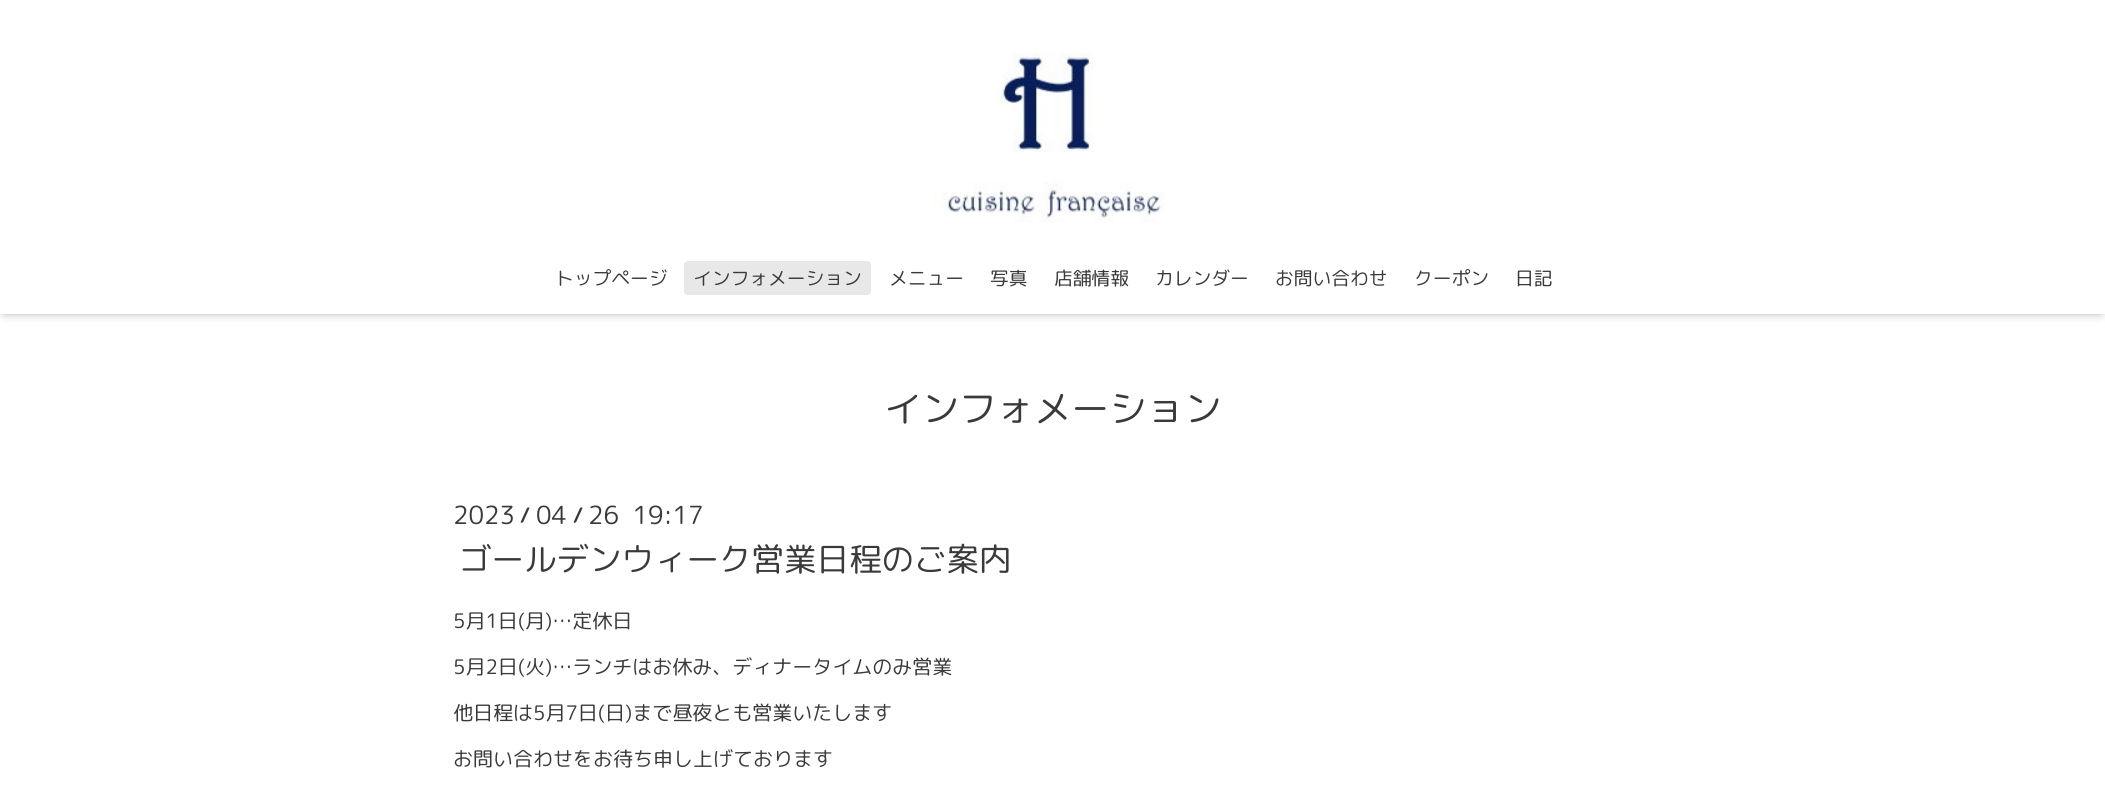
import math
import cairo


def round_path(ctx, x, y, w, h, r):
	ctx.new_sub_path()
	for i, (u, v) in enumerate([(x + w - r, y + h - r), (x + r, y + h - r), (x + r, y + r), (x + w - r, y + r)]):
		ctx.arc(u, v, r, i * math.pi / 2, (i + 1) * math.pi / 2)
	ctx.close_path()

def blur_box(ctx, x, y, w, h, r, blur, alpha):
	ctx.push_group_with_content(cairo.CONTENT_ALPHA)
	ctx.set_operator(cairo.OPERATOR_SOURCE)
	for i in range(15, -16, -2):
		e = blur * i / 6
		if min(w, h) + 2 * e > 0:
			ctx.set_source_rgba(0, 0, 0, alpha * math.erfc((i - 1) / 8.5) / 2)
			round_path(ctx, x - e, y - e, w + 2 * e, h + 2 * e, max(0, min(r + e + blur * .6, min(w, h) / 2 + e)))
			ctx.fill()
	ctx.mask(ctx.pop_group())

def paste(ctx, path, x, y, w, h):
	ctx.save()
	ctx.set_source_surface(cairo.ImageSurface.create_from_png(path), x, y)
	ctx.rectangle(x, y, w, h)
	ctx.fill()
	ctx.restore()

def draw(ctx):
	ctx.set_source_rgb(1, 1, 1)
	ctx.paint()
	ctx.set_source_rgb(0, 0, 0)
	blur_box(ctx, 5, 6, 2095, 304, 0, 6, 0.6)
	ctx.set_source_rgb(1, 1, 1)
	ctx.rectangle(0, 0, 2105, 314)
	ctx.fill()
	paste(ctx, 'media/1.png', 934, 52, 230, 171)
	ctx.select_font_face('Rounded Mplus 1c')
	ctx.set_font_size(18.75)
	ctx.set_source_rgb(0.227, 0.227, 0.227)
	ctx.move_to(555, 285)
	ctx.show_text('トップページ')
	ctx.set_source_rgb(0.91, 0.91, 0.91)
	round_path(ctx, 684, 261, 187, 34, 4)
	ctx.fill()
	ctx.set_source_rgb(0.227, 0.227, 0.227)
	for x, y, s in [
		(693, 285, 'インフォメーション'),
		(889, 285, 'メニュー'),
		(990, 285, '写真'),
		(1054, 285, '店舗情報'),
		(1155, 285, 'カレンダー'),
		(1275, 285, 'お問い合わせ'),
		(1414, 285, 'クーポン'),
		(1515, 285, '日記'),
	]:
		ctx.move_to(x, y)
		ctx.show_text(s)
	ctx.set_font_size(37.5)
	ctx.move_to(884, 422)
	ctx.show_text('インフォメーション')
	ctx.set_font_size(25)
	ctx.move_to(453, 524)
	ctx.show_text('2023')
	ctx.select_font_face('Rounded Mplus 1c Bold', cairo.FONT_SLANT_NORMAL, cairo.FONT_WEIGHT_BOLD)
	ctx.set_font_size(20)
	ctx.move_to(520, 522)
	ctx.show_text('/')
	ctx.select_font_face('Rounded Mplus 1c')
	ctx.set_font_size(25)
	ctx.move_to(536, 524)
	ctx.show_text('04')
	ctx.select_font_face('Rounded Mplus 1c Bold', cairo.FONT_SLANT_NORMAL, cairo.FONT_WEIGHT_BOLD)
	ctx.set_font_size(20)
	ctx.move_to(573, 522)
	ctx.show_text('/')
	ctx.select_font_face('Rounded Mplus 1c')
	ctx.set_font_size(25)
	ctx.move_to(588, 524)
	ctx.show_text('26  19:17')
	ctx.set_font_size(32.5)
	ctx.move_to(459, 571)
	ctx.show_text('ゴールデンウィーク営業日程のご案内')
	ctx.set_font_size(20)
	for x, y, s in [
		(453, 628, '5月1日(月)…定休日'),
		(453, 674, '5月2日(火)…ランチはお休み、ディナータイムのみ営業'),
		(453, 720, '他日程は5月7日(日)まで昼夜とも営業いたします'),
		(453, 766, 'お問い合わせをお待ち申し上げております'),
	]:
		ctx.move_to(x, y)
		ctx.show_text(s)


surface = cairo.ImageSurface(cairo.FORMAT_RGB24, 2105, 799)
ctx = cairo.Context(surface)
options = cairo.FontOptions()
options.set_hint_metrics(cairo.HINT_METRICS_OFF)
options.set_hint_style(cairo.HINT_STYLE_NONE)
ctx.set_font_options(options)
ctx.set_miter_limit(4)
draw(ctx)
surface.write_to_png('image.png')
